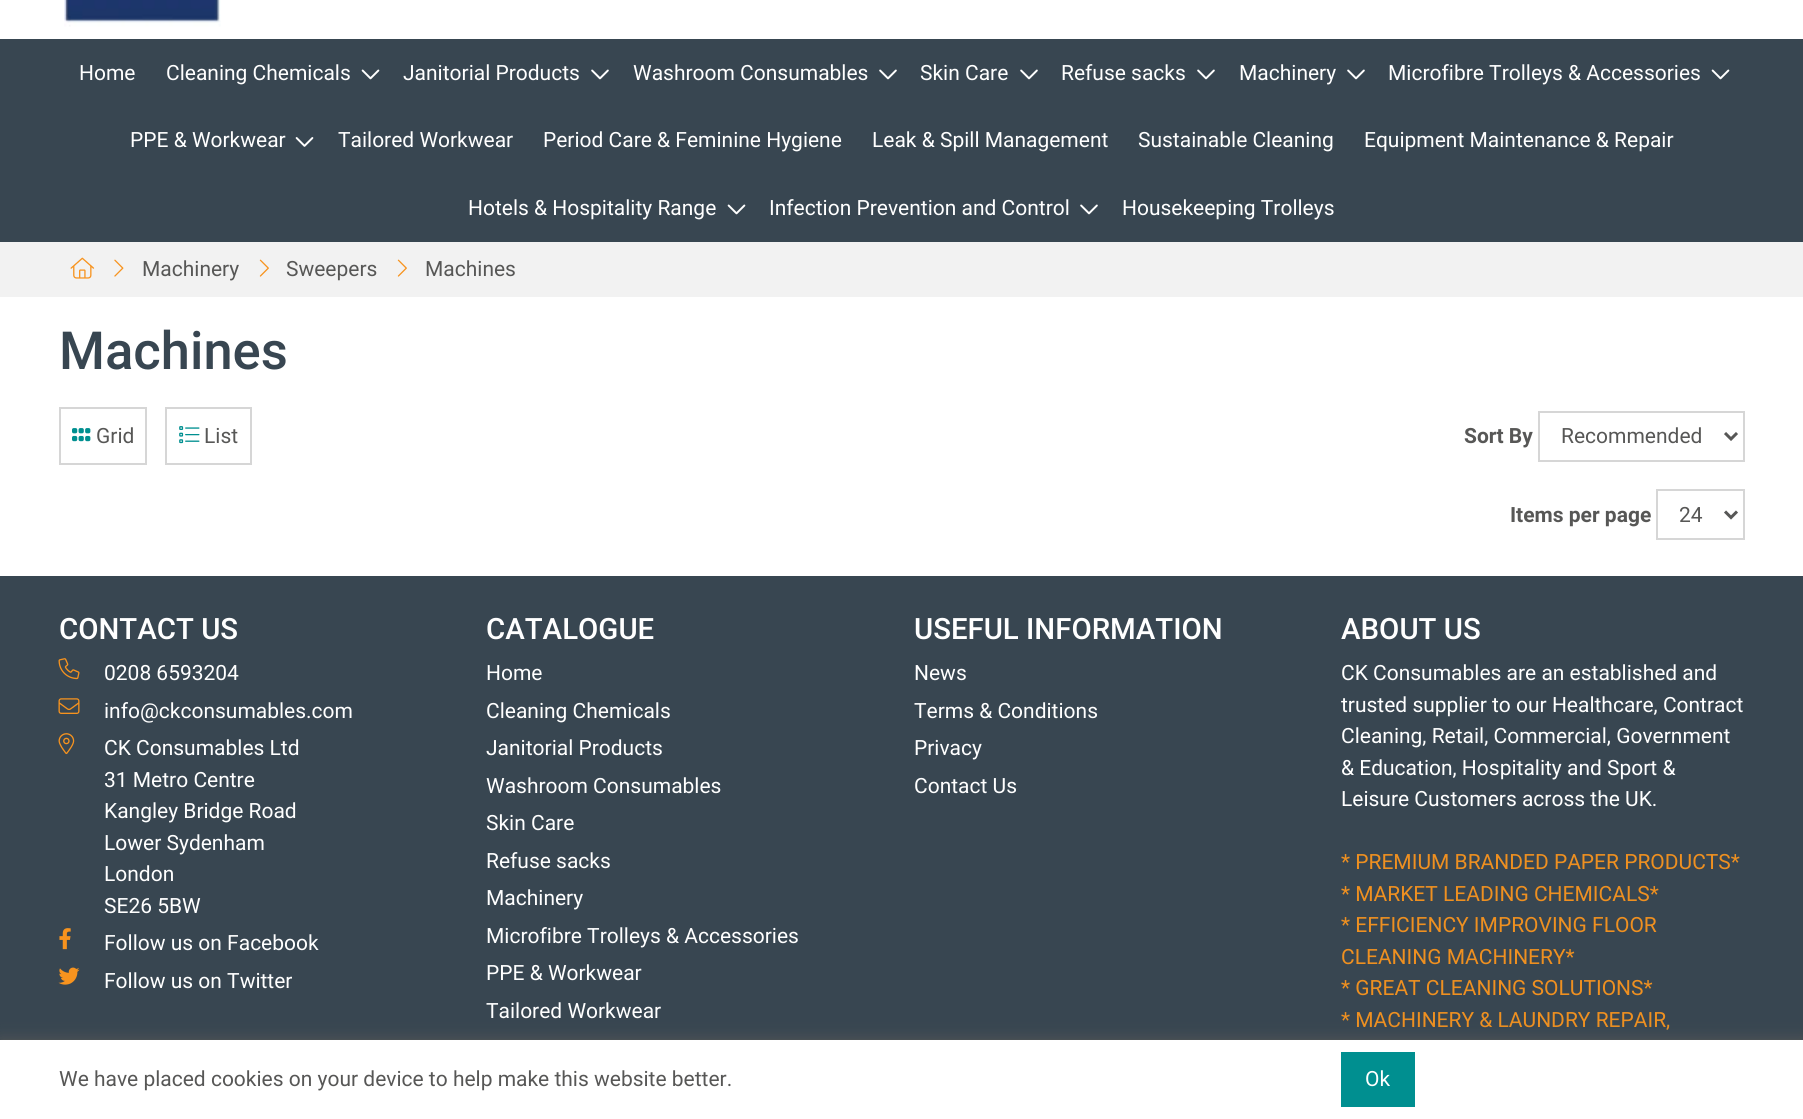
import math
import cairo


def round_path(ctx, x, y, w, h, r):
	ctx.new_sub_path()
	for i, (u, v) in enumerate([(x + w - r, y + h - r), (x + r, y + h - r), (x + r, y + r), (x + w - r, y + r)]):
		ctx.arc(u, v, r, i * math.pi / 2, (i + 1) * math.pi / 2)
	ctx.close_path()

def blur_box(ctx, x, y, w, h, r, blur, alpha):
	ctx.push_group_with_content(cairo.CONTENT_ALPHA)
	ctx.set_operator(cairo.OPERATOR_SOURCE)
	for i in range(15, -16, -2):
		e = blur * i / 6
		if min(w, h) + 2 * e > 0:
			ctx.set_source_rgba(0, 0, 0, alpha * math.erfc((i - 1) / 8.5) / 2)
			round_path(ctx, x - e, y - e, w + 2 * e, h + 2 * e, max(0, min(r + e + blur * .6, min(w, h) / 2 + e)))
			ctx.fill()
	ctx.mask(ctx.pop_group())

def paste(ctx, path, x, y, w, h):
	ctx.save()
	ctx.set_source_surface(cairo.ImageSurface.create_from_png(path), x, y)
	ctx.rectangle(x, y, w, h)
	ctx.fill()
	ctx.restore()

def draw(ctx):
	ctx.set_source_rgb(1, 1, 1)
	ctx.paint()
	paste(ctx, 'media/1.png', 64, 0, 157, 27)
	ctx.set_source_rgb(0.22, 0.275, 0.318)
	ctx.rectangle(0, 39, 1803, 203)
	ctx.fill()
	ctx.select_font_face('Roboto')
	ctx.set_font_size(21)
	ctx.set_source_rgb(1, 1, 1)
	ctx.move_to(79, 80)
	ctx.show_text('Home')
	ctx.move_to(166, 80)
	ctx.show_text('Cleaning Chemicals')
	paste(ctx, 'media/2.png', 361, 69, 19, 11)
	ctx.move_to(403, 80)
	ctx.show_text('Janitorial Products')
	paste(ctx, 'media/3.png', 591, 69, 18, 11)
	ctx.move_to(633, 80)
	ctx.show_text('Washroom Consumables')
	paste(ctx, 'media/3.png', 879, 69, 18, 11)
	ctx.move_to(920, 80)
	ctx.show_text('Skin Care')
	paste(ctx, 'media/3.png', 1020, 69, 18, 11)
	ctx.move_to(1061, 80)
	ctx.show_text('Refuse sacks')
	paste(ctx, 'media/3.png', 1197, 69, 18, 11)
	ctx.move_to(1239, 80)
	ctx.show_text('Machinery')
	paste(ctx, 'media/3.png', 1347, 69, 18, 11)
	ctx.move_to(1388, 80)
	ctx.show_text('Microfibre Trolleys & Accessories')
	paste(ctx, 'media/2.png', 1711, 69, 19, 11)
	ctx.move_to(130, 147)
	ctx.show_text('PPE & Workwear')
	paste(ctx, 'media/4.png', 295, 137, 19, 10)
	for x, y, s in [
		(338, 147, 'Tailored Workwear'),
		(543, 147, 'Period Care & Feminine Hygiene'),
		(872, 147, 'Leak & Spill Management'),
		(1138, 147, 'Sustainable Cleaning'),
		(1364, 147, 'Equipment Maintenance & Repair'),
		(468, 215, 'Hotels & Hospitality Range'),
	]:
		ctx.move_to(x, y)
		ctx.show_text(s)
	paste(ctx, 'media/2.png', 727, 204, 19, 11)
	ctx.move_to(769, 215)
	ctx.show_text('Infection Prevention and Control')
	paste(ctx, 'media/3.png', 1080, 204, 18, 11)
	ctx.move_to(1122, 215)
	ctx.show_text('Housekeeping Trolleys')
	ctx.set_source_rgb(0.949, 0.949, 0.949)
	ctx.rectangle(0, 242, 1803, 55)
	ctx.fill()
	paste(ctx, 'media/5.png', 70, 257, 25, 22)
	paste(ctx, 'media/6.png', 114, 259, 10, 18)
	ctx.set_source_rgb(0.341, 0.341, 0.337)
	ctx.move_to(142, 276)
	ctx.show_text('Machinery')
	paste(ctx, 'media/7.png', 259, 259, 10, 18)
	ctx.move_to(286, 276)
	ctx.show_text('Sweepers')
	paste(ctx, 'media/7.png', 397, 259, 10, 18)
	ctx.move_to(425, 276)
	ctx.show_text('Machines')
	ctx.select_font_face('Roboto Medium')
	ctx.set_font_size(52.5)
	ctx.set_source_rgb(0.22, 0.275, 0.318)
	ctx.move_to(59, 369)
	ctx.show_text('Machines')
	ctx.rectangle(60, 408, 86, 56)
	ctx.set_source_rgb(0.839, 0.839, 0.839)
	ctx.stroke()
	paste(ctx, 'media/8.png', 72, 428, 19, 14)
	ctx.select_font_face('Roboto')
	ctx.set_font_size(21)
	ctx.set_source_rgb(0.341, 0.341, 0.337)
	ctx.move_to(96, 443)
	ctx.show_text('Grid')
	ctx.rectangle(166, 408, 85, 56)
	ctx.set_source_rgb(0.839, 0.839, 0.839)
	ctx.stroke()
	paste(ctx, 'media/9.png', 179, 426, 21, 18)
	ctx.set_source_rgb(0.341, 0.341, 0.337)
	ctx.move_to(204, 443)
	ctx.show_text('List')
	ctx.select_font_face('Roboto', cairo.FONT_SLANT_NORMAL, cairo.FONT_WEIGHT_BOLD)
	ctx.move_to(1464, 443)
	ctx.show_text('Sort By')
	ctx.rectangle(1539, 412, 205, 49)
	ctx.set_source_rgb(0.839, 0.839, 0.839)
	ctx.stroke()
	ctx.new_path()
	ctx.move_to(1725, 433)
	ctx.line_to(1731, 439)
	ctx.line_to(1737, 433)
	ctx.set_source_rgb(0.341, 0.341, 0.337)
	ctx.set_line_width(3)
	ctx.stroke()
	ctx.select_font_face('Roboto')
	ctx.move_to(1561, 443)
	ctx.show_text('Recommended')
	ctx.select_font_face('Roboto', cairo.FONT_SLANT_NORMAL, cairo.FONT_WEIGHT_BOLD)
	ctx.move_to(1510, 522)
	ctx.show_text('Items per page')
	ctx.rectangle(1657, 490, 87, 49)
	ctx.set_source_rgb(0.839, 0.839, 0.839)
	ctx.set_line_width(2)
	ctx.stroke()
	ctx.new_path()
	ctx.move_to(1725, 511.5)
	ctx.line_to(1731, 517.5)
	ctx.line_to(1737, 511.5)
	ctx.set_source_rgb(0.341, 0.341, 0.337)
	ctx.set_line_width(3)
	ctx.stroke()
	ctx.select_font_face('Roboto')
	ctx.move_to(1679, 522)
	ctx.show_text('24')
	ctx.set_source_rgb(0.22, 0.275, 0.318)
	ctx.rectangle(0, 576, 1803, 464)
	ctx.fill()
	ctx.select_font_face('Roboto Medium')
	ctx.set_font_size(29.4)
	ctx.set_source_rgb(1, 1, 1)
	ctx.move_to(59, 639)
	ctx.show_text('CONTACT US')
	paste(ctx, 'media/10.png', 58, 658, 22, 22)
	ctx.select_font_face('Roboto')
	ctx.set_font_size(21)
	ctx.move_to(104, 680)
	ctx.show_text('0208 6593204')
	paste(ctx, 'media/11.png', 58, 698, 22, 16)
	ctx.move_to(104, 718)
	ctx.show_text('info@ckconsumables.com')
	paste(ctx, 'media/12.png', 58, 733, 17, 22)
	for x, y, s in [
		(104, 755, 'CK Consumables Ltd'),
		(104, 787, '31 Metro Centre'),
		(104, 818, 'Kangley Bridge Road'),
		(104, 850, 'Lower Sydenham'),
		(104, 881, 'London'),
		(104, 913, 'SE26 5BW'),
	]:
		ctx.move_to(x, y)
		ctx.show_text(s)
	paste(ctx, 'media/13.png', 59, 928, 12, 22)
	ctx.move_to(104, 950)
	ctx.show_text('Follow us on Facebook')
	paste(ctx, 'media/14.png', 58, 967, 22, 18)
	ctx.move_to(104, 988)
	ctx.show_text('Follow us on Twitter')
	ctx.select_font_face('Roboto Medium')
	ctx.set_font_size(29.4)
	ctx.move_to(486, 639)
	ctx.show_text('CATALOGUE')
	ctx.select_font_face('Roboto')
	ctx.set_font_size(21)
	for x, y, s in [
		(486, 680, 'Home'),
		(486, 718, 'Cleaning Chemicals'),
		(486, 755, 'Janitorial Products'),
		(486, 793, 'Washroom Consumables'),
		(486, 830, 'Skin Care'),
		(486, 868, 'Refuse sacks'),
		(486, 905, 'Machinery'),
		(486, 943, 'Microfibre Trolleys & Accessories'),
		(486, 980, 'PPE & Workwear'),
		(486, 1018, 'Tailored Workwear'),
	]:
		ctx.move_to(x, y)
		ctx.show_text(s)
	ctx.select_font_face('Roboto Medium')
	ctx.set_font_size(29.4)
	ctx.move_to(914, 639)
	ctx.show_text('USEFUL INFORMATION')
	ctx.select_font_face('Roboto')
	ctx.set_font_size(21)
	for x, y, s in [
		(914, 680, 'News'),
		(914, 718, 'Terms & Conditions'),
		(914, 755, 'Privacy'),
		(914, 793, 'Contact Us'),
	]:
		ctx.move_to(x, y)
		ctx.show_text(s)
	ctx.select_font_face('Roboto Medium')
	ctx.set_font_size(29.4)
	ctx.move_to(1341, 639)
	ctx.show_text('ABOUT US')
	ctx.select_font_face('Roboto')
	ctx.set_font_size(21)
	for x, y, s in [
		(1341, 680, 'CK Consumables are an established and'),
		(1341, 712, 'trusted supplier to our Healthcare, Contract'),
		(1341, 743, 'Cleaning, Retail, Commercial, Government'),
		(1341, 775, '& Education, Hospitality and Sport &'),
		(1341, 806, 'Leisure Customers across the UK.'),
	]:
		ctx.move_to(x, y)
		ctx.show_text(s)
	ctx.set_source_rgb(0.937, 0.565, 0.125)
	for x, y, s in [
		(1341, 869, '* PREMIUM BRANDED PAPER PRODUCTS*'),
		(1341, 901, '* MARKET LEADING CHEMICALS*'),
		(1341, 932, '* EFFICIENCY IMPROVING FLOOR'),
		(1341, 964, 'CLEANING MACHINERY*'),
		(1341, 995, '* GREAT CLEANING SOLUTIONS*'),
		(1341, 1027, '* MACHINERY & LAUNDRY REPAIR,'),
	]:
		ctx.move_to(x, y)
		ctx.show_text(s)
	ctx.set_source_rgb(0.341, 0.341, 0.337)
	blur_box(ctx, 0, 1040, 1803, 79, 0, 7.5, 1)
	ctx.set_source_rgb(1, 1, 1)
	ctx.rectangle(0, 1040, 1803, 79)
	ctx.fill()
	ctx.set_source_rgb(0.341, 0.341, 0.337)
	ctx.move_to(59, 1086)
	ctx.show_text('We have placed cookies on your device to help make this website better.')
	ctx.set_source_rgb(0, 0.561, 0.565)
	ctx.rectangle(1341, 1052, 74, 55)
	ctx.fill()
	ctx.set_source_rgb(1, 1, 1)
	ctx.move_to(1365, 1086)
	ctx.show_text('Ok')


surface = cairo.ImageSurface(cairo.FORMAT_RGB24, 1803, 1119)
ctx = cairo.Context(surface)
options = cairo.FontOptions()
options.set_hint_metrics(cairo.HINT_METRICS_OFF)
options.set_hint_style(cairo.HINT_STYLE_NONE)
ctx.set_font_options(options)
ctx.set_miter_limit(4)
draw(ctx)
surface.write_to_png('image.png')
